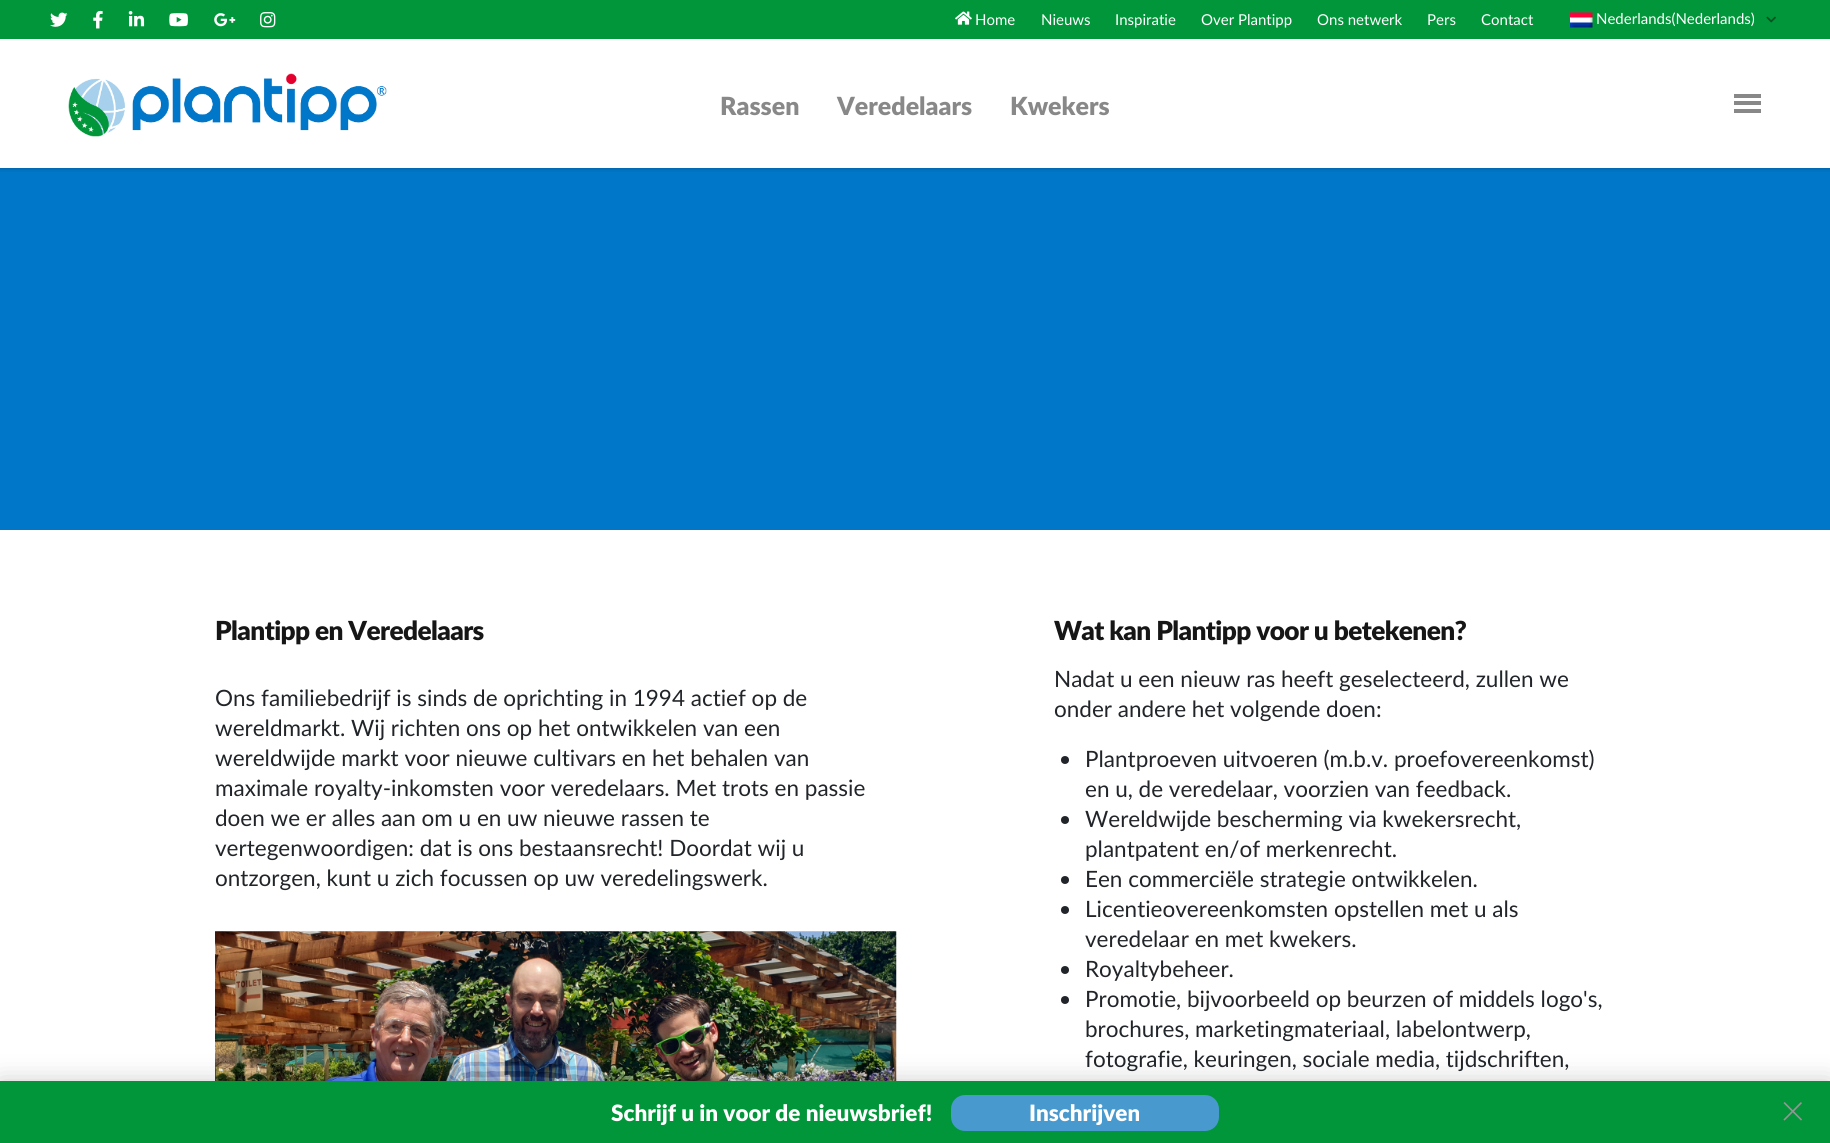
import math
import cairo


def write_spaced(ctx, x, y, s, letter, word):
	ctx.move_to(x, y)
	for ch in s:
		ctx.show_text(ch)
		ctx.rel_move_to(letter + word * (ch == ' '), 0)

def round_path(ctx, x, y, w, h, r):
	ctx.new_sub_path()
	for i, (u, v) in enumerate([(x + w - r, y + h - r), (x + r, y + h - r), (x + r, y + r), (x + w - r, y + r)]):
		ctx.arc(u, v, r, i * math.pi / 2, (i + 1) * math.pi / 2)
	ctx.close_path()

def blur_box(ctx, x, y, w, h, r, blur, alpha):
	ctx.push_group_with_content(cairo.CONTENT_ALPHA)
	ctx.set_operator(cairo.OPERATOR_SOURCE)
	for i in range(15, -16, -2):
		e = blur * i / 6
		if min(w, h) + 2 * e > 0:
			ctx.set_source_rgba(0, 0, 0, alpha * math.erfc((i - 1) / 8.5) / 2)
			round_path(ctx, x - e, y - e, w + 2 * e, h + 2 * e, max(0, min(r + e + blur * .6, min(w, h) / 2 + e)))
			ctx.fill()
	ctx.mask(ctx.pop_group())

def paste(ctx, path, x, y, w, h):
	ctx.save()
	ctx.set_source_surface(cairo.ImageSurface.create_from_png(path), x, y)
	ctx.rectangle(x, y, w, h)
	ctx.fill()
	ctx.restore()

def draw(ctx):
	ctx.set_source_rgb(1, 1, 1)
	ctx.paint()
	ctx.set_source_rgb(0, 0.467, 0.784)
	ctx.rectangle(0, 168, 1830, 362)
	ctx.fill()
	ctx.set_source_rgb(0, 0, 0)
	blur_box(ctx, -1, -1, 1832, 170, 0, 2, 0.2)
	ctx.set_source_rgb(1, 1, 1)
	ctx.rectangle(0, 39, 1830, 129)
	ctx.fill()
	ctx.set_source_rgb(0, 0.588, 0.224)
	ctx.rectangle(0, 0, 1830, 39)
	ctx.fill()
	paste(ctx, 'media/1.png', 50, 12, 18, 15)
	paste(ctx, 'media/2.png', 93, 10, 10, 19)
	paste(ctx, 'media/3.png', 128, 11, 17, 16)
	paste(ctx, 'media/4.png', 169, 13, 19, 14)
	paste(ctx, 'media/5.png', 214, 13, 22, 14)
	paste(ctx, 'media/6.png', 260, 12, 16, 16)
	paste(ctx, 'media/7.png', 955, 11, 17, 14)
	ctx.select_font_face('Lato')
	ctx.set_font_size(15)
	ctx.set_source_rgb(1, 1, 1)
	for x, y, s in [
		(975, 25, 'Home'),
		(1041, 25, 'Nieuws'),
		(1115, 25, 'Inspiratie'),
		(1201, 25, 'Over Plantipp'),
		(1317, 25, 'Ons netwerk'),
		(1427, 25, 'Pers'),
		(1481, 25, 'Contact'),
	]:
		ctx.move_to(x, y)
		ctx.show_text(s)
	paste(ctx, 'media/8.png', 1570, 12, 23, 16)
	ctx.move_to(1596, 24)
	ctx.show_text('Nederlands(Nederlands)')
	paste(ctx, 'media/9.png', 1766, 16, 10, 7)
	paste(ctx, 'media/10.png', 68, 73, 319, 64)
	ctx.select_font_face('Lato Black')
	ctx.set_font_size(25)
	ctx.set_source_rgb(0.533, 0.533, 0.533)
	for x, y, s in [
		(720, 115, 'Rassen'),
		(837, 115, 'Veredelaars'),
		(1010, 115, 'Kwekers'),
	]:
		ctx.move_to(x, y)
		ctx.show_text(s)
	ctx.rectangle(1734, 94, 27, 4)
	ctx.rectangle(1734, 101, 27, 4)
	ctx.rectangle(1734, 109, 27, 4)
	ctx.fill()
	ctx.set_font_size(26.25)
	ctx.set_source_rgb(0.086, 0.086, 0.086)
	write_spaced(ctx, 215, 640, 'Plantipp en Veredelaars', -0.6, 0)
	ctx.select_font_face('Lato')
	ctx.set_font_size(22.5)
	ctx.set_source_rgb(0.129, 0.145, 0.161)
	for x, y, s in [
		(215, 706, 'Ons familiebedrijf is sinds de oprichting in 1994 actief op de'),
		(215, 736, 'wereldmarkt. Wij richten ons op het ontwikkelen van een'),
		(215, 766, 'wereldwijde markt voor nieuwe cultivars en het behalen van'),
		(215, 796, 'maximale royalty-inkomsten voor veredelaars. Met trots en passie'),
		(215, 826, 'doen we er alles aan om u en uw nieuwe rassen te'),
		(215, 856, 'vertegenwoordigen: dat is ons bestaansrecht! Doordat wij u'),
		(215, 886, 'ontzorgen, kunt u zich focussen op uw veredelingswerk.'),
	]:
		ctx.move_to(x, y)
		ctx.show_text(s)
	paste(ctx, 'media/11.png', 215, 931, 682, 150)
	ctx.select_font_face('Lato Black')
	ctx.set_font_size(26.25)
	ctx.set_source_rgb(0.086, 0.086, 0.086)
	write_spaced(ctx, 1054, 640, 'Wat kan Plantipp voor u betekenen?', -0.6, 0)
	ctx.select_font_face('Lato')
	ctx.set_font_size(22.5)
	ctx.set_source_rgb(0.129, 0.145, 0.161)
	ctx.move_to(1054, 687)
	ctx.show_text('Nadat u een nieuw ras heeft geselecteerd, zullen we')
	ctx.move_to(1054, 717)
	ctx.show_text('onder andere het volgende doen:')
	ctx.new_path()
	ctx.arc(1065, 760, 4, 0, 2 * math.pi)
	ctx.fill()
	ctx.move_to(1085, 767)
	ctx.show_text('Plantproeven uitvoeren (m.b.v. proefovereenkomst)')
	ctx.move_to(1085, 797)
	ctx.show_text('en u, de veredelaar, voorzien van feedback.')
	ctx.new_path()
	ctx.arc(1065, 820, 4, 0, 2 * math.pi)
	ctx.fill()
	ctx.move_to(1085, 827)
	ctx.show_text('Wereldwijde bescherming via kwekersrecht,')
	ctx.move_to(1085, 857)
	ctx.show_text('plantpatent en/of merkenrecht.')
	ctx.new_path()
	ctx.arc(1065, 880, 4, 0, 2 * math.pi)
	ctx.fill()
	ctx.move_to(1085, 887)
	ctx.show_text('Een commerciële strategie ontwikkelen.')
	ctx.new_path()
	ctx.arc(1065, 910, 4, 0, 2 * math.pi)
	ctx.fill()
	ctx.move_to(1085, 917)
	ctx.show_text('Licentieovereenkomsten opstellen met u als')
	ctx.move_to(1085, 947)
	ctx.show_text('veredelaar en met kwekers.')
	ctx.new_path()
	ctx.arc(1065, 970, 4, 0, 2 * math.pi)
	ctx.fill()
	ctx.move_to(1085, 977)
	ctx.show_text('Royaltybeheer.')
	ctx.new_path()
	ctx.arc(1065, 1000, 4, 0, 2 * math.pi)
	ctx.fill()
	for x, y, s in [
		(1085, 1007, 'Promotie, bijvoorbeeld op beurzen of middels logo\'s,'),
		(1085, 1037, 'brochures, marketingmateriaal, labelontwerp,'),
		(1085, 1067, 'fotografie, keuringen, sociale media, tijdschriften,'),
	]:
		ctx.move_to(x, y)
		ctx.show_text(s)
	ctx.set_source_rgb(0, 0, 0)
	blur_box(ctx, 0, 1081, 1830, 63, 0, 12.5, 0.2)
	ctx.set_source_rgb(0, 0.588, 0.224)
	ctx.rectangle(0, 1081, 1830, 62)
	ctx.fill()
	ctx.select_font_face('Lato Black')
	ctx.set_source_rgb(1, 1, 1)
	ctx.move_to(611, 1121)
	ctx.show_text('Schrijf u in voor de nieuwsbrief!')
	ctx.set_source_rgb(0.282, 0.6, 0.808)
	round_path(ctx, 951, 1095, 268, 36, 14)
	ctx.fill()
	ctx.set_source_rgb(1, 1, 1)
	ctx.move_to(1029, 1121)
	ctx.show_text('Inschrijven')
	ctx.select_font_face('Lato Light')
	ctx.set_font_size(44)
	ctx.set_source_rgb(0.584, 0.584, 0.584)
	ctx.move_to(1780, 1126)
	ctx.show_text('×')


surface = cairo.ImageSurface(cairo.FORMAT_RGB24, 1830, 1143)
ctx = cairo.Context(surface)
options = cairo.FontOptions()
options.set_hint_metrics(cairo.HINT_METRICS_OFF)
options.set_hint_style(cairo.HINT_STYLE_NONE)
ctx.set_font_options(options)
ctx.set_miter_limit(4)
draw(ctx)
surface.write_to_png('image.png')
